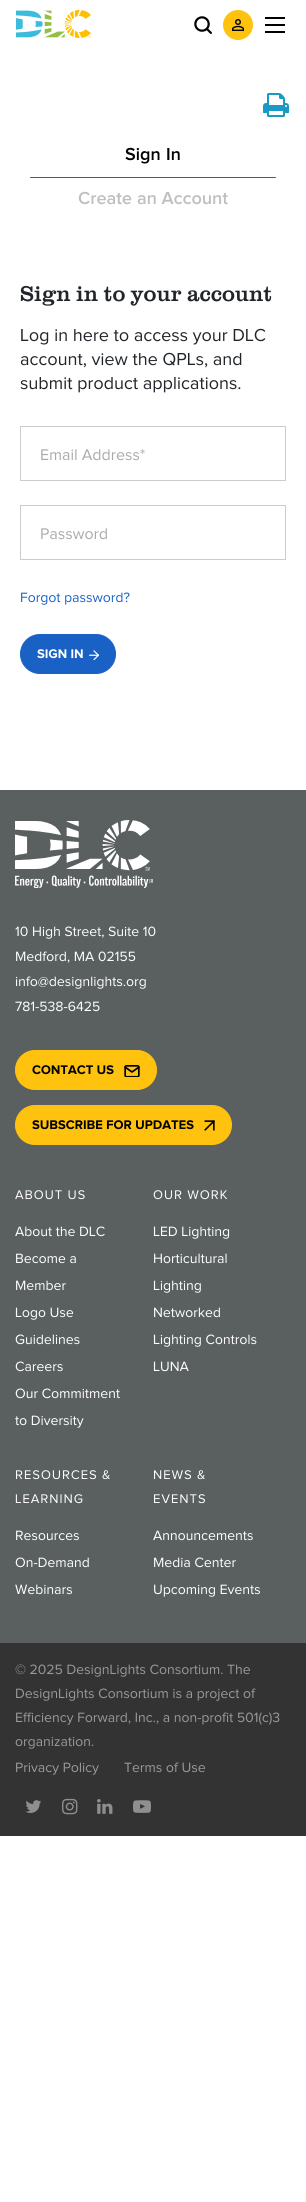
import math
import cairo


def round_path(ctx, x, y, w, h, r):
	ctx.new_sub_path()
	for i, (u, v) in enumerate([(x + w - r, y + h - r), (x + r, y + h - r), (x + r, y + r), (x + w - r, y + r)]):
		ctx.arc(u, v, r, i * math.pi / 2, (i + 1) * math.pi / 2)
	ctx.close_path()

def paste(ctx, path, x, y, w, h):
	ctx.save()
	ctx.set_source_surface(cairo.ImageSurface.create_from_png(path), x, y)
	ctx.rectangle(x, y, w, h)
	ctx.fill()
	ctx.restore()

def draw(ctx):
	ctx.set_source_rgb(1, 1, 1)
	ctx.paint()
	paste(ctx, 'media/1.png', 16, 10, 75, 28)
	paste(ctx, 'media/2.png', 194, 16, 18, 18)
	ctx.set_source_rgb(1, 0.761, 0.055)
	ctx.arc(238, 25, 15, 0, 2 * math.pi)
	ctx.fill()
	paste(ctx, 'media/3.png', 232, 19, 12, 12)
	ctx.set_source_rgb(0, 0, 0)
	ctx.rectangle(265, 17, 20, 2)
	ctx.rectangle(265, 24, 20, 2)
	ctx.rectangle(265, 31, 20, 2)
	ctx.fill()
	paste(ctx, 'media/4.png', 263, 93, 26, 24)
	paste(ctx, 'media/5.png', 125, 147, 35, 17)
	paste(ctx, 'media/6.png', 167, 148, 13, 12)
	ctx.set_source_rgb(0.098, 0.38, 0.769)
	round_path(ctx, 30, 177, 246, 1, 0.5)
	ctx.fill()
	paste(ctx, 'media/7.png', 78, 191, 54, 14)
	paste(ctx, 'media/8.png', 137, 192, 91, 13)
	ctx.select_font_face('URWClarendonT')
	ctx.set_font_size(22)
	ctx.set_source_rgb(0.129, 0.145, 0.161)
	ctx.move_to(20, 301)
	ctx.show_text('Sign in to your account')
	paste(ctx, 'media/9.png', 21, 328, 245, 17)
	paste(ctx, 'media/10.png', 20, 352, 222, 16)
	paste(ctx, 'media/11.png', 20, 377, 221, 16)
	paste(ctx, 'media/12.png', 41, 449, 104, 12)
	ctx.rectangle(20.5, 426.5, 265, 54)
	ctx.set_source_rgb(0.8, 0.8, 0.8)
	ctx.set_line_width(1)
	ctx.stroke()
	paste(ctx, 'media/13.png', 41, 528, 66, 12)
	ctx.rectangle(20.5, 505.5, 265, 54)
	ctx.stroke()
	paste(ctx, 'media/14.png', 21, 592, 109, 13)
	ctx.set_source_rgb(0.098, 0.38, 0.769)
	round_path(ctx, 20.5, 634.5, 95, 39, 19.5)
	ctx.fill_preserve()
	ctx.stroke()
	paste(ctx, 'media/15.png', 37, 649, 46, 10)
	paste(ctx, 'media/16.png', 89, 650, 10, 10)
	ctx.set_source_rgb(0.353, 0.373, 0.373)
	ctx.rectangle(0, 790, 306, 853)
	ctx.fill()
	paste(ctx, 'media/17.png', 15, 820, 138, 68)
	paste(ctx, 'media/18.png', 15, 926, 141, 13)
	paste(ctx, 'media/19.png', 16, 951, 120, 12)
	paste(ctx, 'media/20.png', 15, 976, 131, 13)
	paste(ctx, 'media/21.png', 15, 1001, 85, 11)
	ctx.set_source_rgb(1, 0.761, 0.055)
	round_path(ctx, 15.5, 1050.5, 141, 39, 19.5)
	ctx.fill_preserve()
	ctx.stroke()
	paste(ctx, 'media/22.png', 32, 1065, 82, 10)
	paste(ctx, 'media/23.png', 124, 1065, 16, 12)
	round_path(ctx, 15.5, 1105.5, 216, 39, 19.5)
	ctx.fill_preserve()
	ctx.stroke()
	paste(ctx, 'media/24.png', 32, 1120, 162, 10)
	paste(ctx, 'media/25.png', 204, 1120, 11, 11)
	paste(ctx, 'media/26.png', 15, 1190, 70, 10)
	paste(ctx, 'media/27.png', 15, 1226, 90, 11)
	paste(ctx, 'media/28.png', 16, 1253, 60, 11)
	paste(ctx, 'media/29.png', 16, 1280, 50, 11)
	paste(ctx, 'media/30.png', 15, 1307, 59, 13)
	paste(ctx, 'media/31.png', 15, 1334, 65, 11)
	paste(ctx, 'media/32.png', 15, 1361, 48, 11)
	paste(ctx, 'media/33.png', 15, 1388, 105, 11)
	paste(ctx, 'media/34.png', 15, 1415, 69, 13)
	paste(ctx, 'media/35.png', 153, 1190, 75, 10)
	paste(ctx, 'media/36.png', 153, 1226, 77, 13)
	paste(ctx, 'media/37.png', 154, 1253, 73, 11)
	paste(ctx, 'media/38.png', 153, 1280, 48, 13)
	paste(ctx, 'media/39.png', 154, 1307, 66, 11)
	paste(ctx, 'media/40.png', 153, 1334, 104, 13)
	paste(ctx, 'media/41.png', 153, 1361, 36, 11)
	paste(ctx, 'media/42.png', 16, 1470, 94, 10)
	paste(ctx, 'media/43.png', 15, 1494, 68, 10)
	paste(ctx, 'media/44.png', 16, 1530, 63, 11)
	paste(ctx, 'media/45.png', 15, 1557, 74, 11)
	paste(ctx, 'media/46.png', 15, 1584, 57, 11)
	paste(ctx, 'media/47.png', 154, 1470, 51, 10)
	paste(ctx, 'media/48.png', 154, 1494, 51, 10)
	paste(ctx, 'media/49.png', 153, 1530, 100, 11)
	paste(ctx, 'media/50.png', 154, 1557, 82, 11)
	paste(ctx, 'media/51.png', 154, 1584, 106, 13)
	ctx.set_source_rgb(0.2, 0.2, 0.2)
	ctx.rectangle(0, 1643, 306, 193)
	ctx.fill()
	paste(ctx, 'media/52.png', 15, 1664, 235, 13)
	paste(ctx, 'media/53.png', 16, 1688, 240, 13)
	paste(ctx, 'media/54.png', 16, 1712, 264, 13)
	paste(ctx, 'media/55.png', 15, 1736, 79, 13)
	paste(ctx, 'media/56.png', 16, 1762, 83, 13)
	paste(ctx, 'media/57.png', 124, 1762, 81, 11)
	paste(ctx, 'media/58.png', 25, 1800, 16, 13)
	paste(ctx, 'media/59.png', 62, 1798, 16, 17)
	paste(ctx, 'media/60.png', 97, 1799, 16, 15)
	paste(ctx, 'media/61.png', 133, 1800, 18, 13)


surface = cairo.ImageSurface(cairo.FORMAT_RGB24, 306, 2202)
ctx = cairo.Context(surface)
options = cairo.FontOptions()
options.set_hint_metrics(cairo.HINT_METRICS_OFF)
options.set_hint_style(cairo.HINT_STYLE_NONE)
ctx.set_font_options(options)
ctx.set_miter_limit(4)
draw(ctx)
surface.write_to_png('image.png')
